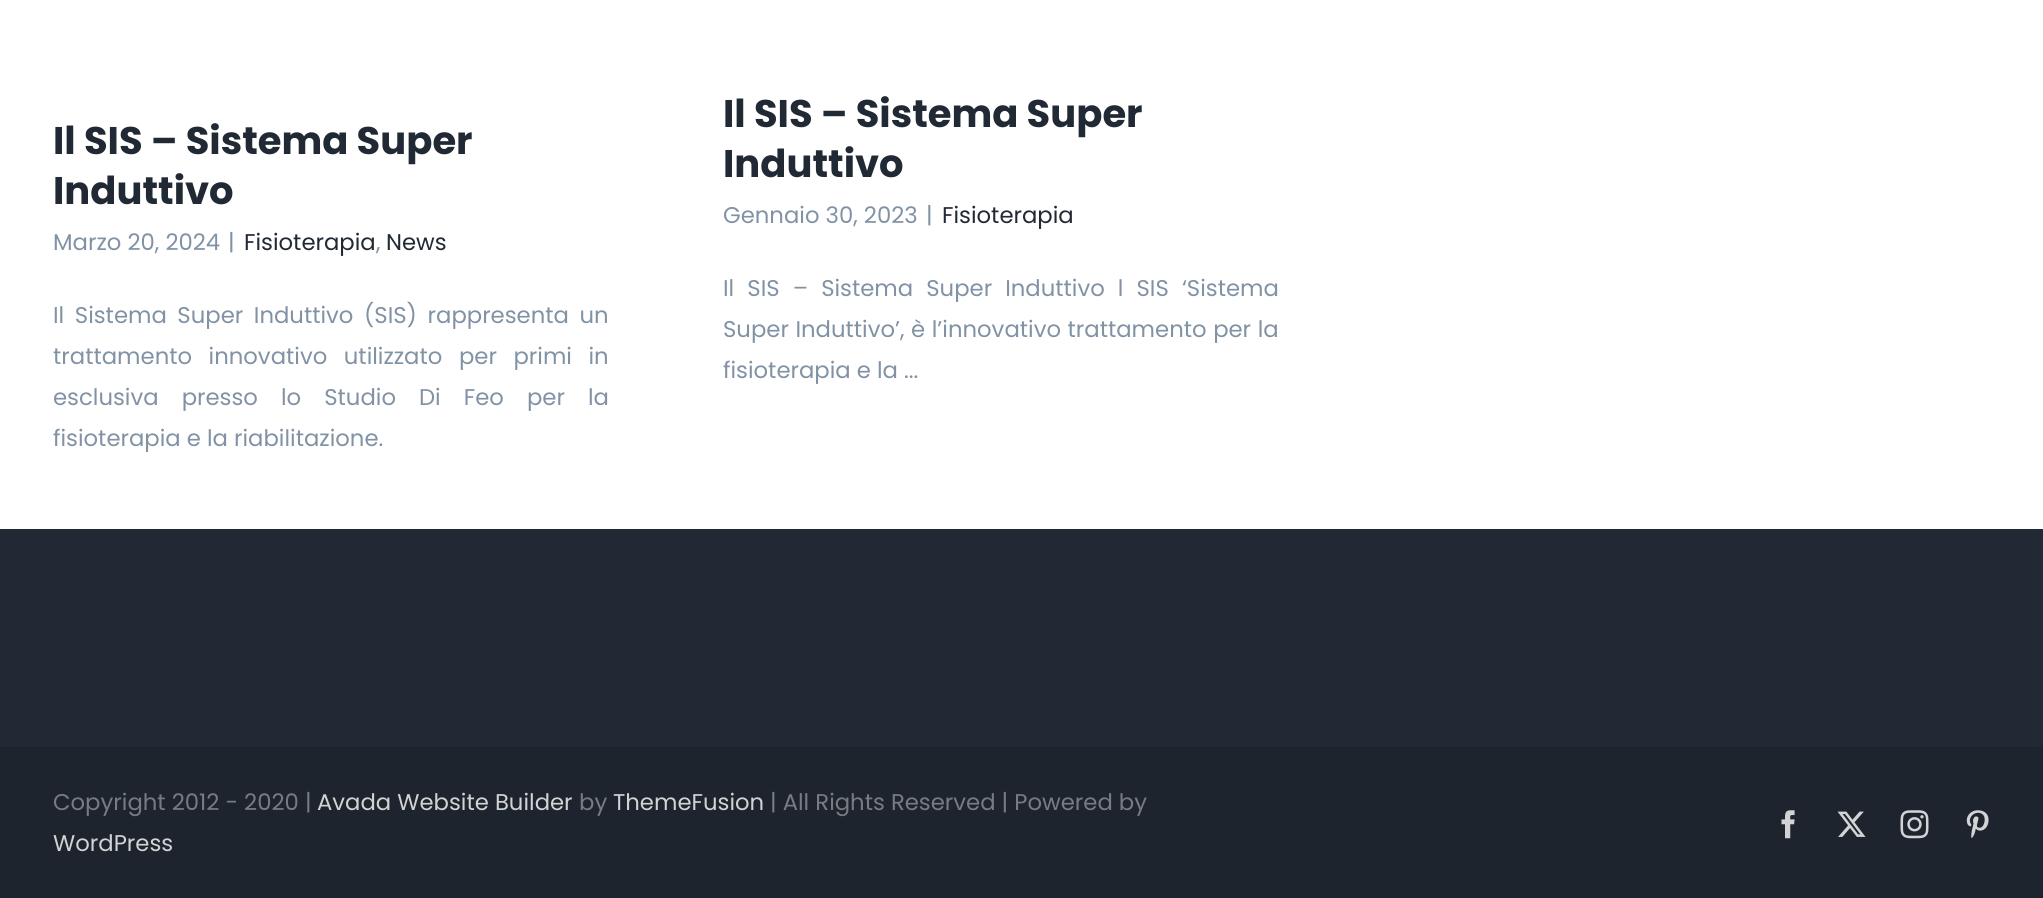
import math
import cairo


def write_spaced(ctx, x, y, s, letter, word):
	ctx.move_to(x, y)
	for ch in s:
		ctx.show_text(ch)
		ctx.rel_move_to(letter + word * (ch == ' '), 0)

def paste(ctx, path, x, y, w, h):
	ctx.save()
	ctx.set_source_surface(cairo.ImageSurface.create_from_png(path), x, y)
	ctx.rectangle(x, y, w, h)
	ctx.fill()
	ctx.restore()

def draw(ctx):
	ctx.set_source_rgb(1, 1, 1)
	ctx.paint()
	ctx.select_font_face('Poppins', cairo.FONT_SLANT_NORMAL, cairo.FONT_WEIGHT_BOLD)
	ctx.set_font_size(38.5)
	ctx.set_source_rgb(0.129, 0.161, 0.204)
	ctx.move_to(53, 154)
	ctx.show_text('Il SIS – Sistema Super')
	ctx.move_to(53, 204)
	ctx.show_text('Induttivo')
	ctx.select_font_face('Poppins')
	ctx.set_font_size(22.75)
	ctx.set_source_rgb(0.506, 0.573, 0.647)
	ctx.move_to(53, 250)
	ctx.show_text('Marzo 20, 2024')
	ctx.move_to(228, 250)
	ctx.show_text('|')
	ctx.set_source_rgb(0.129, 0.161, 0.204)
	ctx.move_to(244, 250)
	ctx.show_text('Fisioterapia')
	ctx.set_source_rgb(0.506, 0.573, 0.647)
	ctx.move_to(376, 250)
	ctx.show_text(',')
	ctx.set_source_rgb(0.129, 0.161, 0.204)
	ctx.move_to(386, 250)
	ctx.show_text('News')
	ctx.set_source_rgb(0.506, 0.573, 0.647)
	write_spaced(ctx, 53, 323, 'Il Sistema Super Induttivo (SIS) rappresenta un', 0, 4.5)
	write_spaced(ctx, 53, 364, 'trattamento innovativo utilizzato per primi in', 0, 10.5)
	write_spaced(ctx, 53, 405, 'esclusiva presso lo Studio Di Feo per la', 0, 17)
	ctx.move_to(53, 446)
	ctx.show_text('fisioterapia e la riabilitazione.')
	ctx.select_font_face('Poppins', cairo.FONT_SLANT_NORMAL, cairo.FONT_WEIGHT_BOLD)
	ctx.set_font_size(38.5)
	ctx.set_source_rgb(0.129, 0.161, 0.204)
	ctx.move_to(723, 127)
	ctx.show_text('Il SIS – Sistema Super')
	ctx.move_to(723, 177)
	ctx.show_text('Induttivo')
	ctx.select_font_face('Poppins')
	ctx.set_font_size(22.75)
	ctx.set_source_rgb(0.506, 0.573, 0.647)
	ctx.move_to(723, 223)
	ctx.show_text('Gennaio 30, 2023')
	ctx.move_to(926, 223)
	ctx.show_text('|')
	ctx.set_source_rgb(0.129, 0.161, 0.204)
	ctx.move_to(942, 223)
	ctx.show_text('Fisioterapia')
	ctx.set_source_rgb(0.506, 0.573, 0.647)
	write_spaced(ctx, 723, 296, 'Il SIS – Sistema Super Induttivo l SIS ‘Sistema', 0, 7)
	write_spaced(ctx, 723, 337, 'Super Induttivo’, è l’innovativo trattamento per la', 0, 0.5)
	ctx.move_to(723, 378)
	ctx.show_text('fisioterapia e la ...')
	ctx.set_source_rgb(0.129, 0.161, 0.204)
	ctx.rectangle(0, 529, 2043, 218)
	ctx.fill()
	ctx.set_source_rgb(0.114, 0.141, 0.176)
	ctx.rectangle(0, 747, 2043, 151)
	ctx.fill()
	ctx.set_source_rgb(0.467, 0.486, 0.506)
	ctx.move_to(53, 810)
	ctx.show_text('Copyright 2012 - 2020 |')
	ctx.set_source_rgb(0.824, 0.827, 0.835)
	ctx.move_to(317, 810)
	ctx.show_text('Avada Website Builder')
	ctx.set_source_rgb(0.467, 0.486, 0.506)
	ctx.move_to(579, 810)
	ctx.show_text('by')
	ctx.set_source_rgb(0.824, 0.827, 0.835)
	ctx.move_to(613, 810)
	ctx.show_text('ThemeFusion')
	ctx.set_source_rgb(0.467, 0.486, 0.506)
	ctx.move_to(770, 810)
	ctx.show_text('| All Rights Reserved | Powered by')
	ctx.set_source_rgb(0.824, 0.827, 0.835)
	ctx.move_to(53, 851)
	ctx.show_text('WordPress')
	paste(ctx, 'media/1.png', 1781, 810, 14, 29)
	paste(ctx, 'media/2.png', 1837, 811, 29, 26)
	paste(ctx, 'media/3.png', 1900, 810, 29, 29)
	paste(ctx, 'media/4.png', 1966, 810, 23, 29)


surface = cairo.ImageSurface(cairo.FORMAT_RGB24, 2043, 898)
ctx = cairo.Context(surface)
options = cairo.FontOptions()
options.set_hint_metrics(cairo.HINT_METRICS_OFF)
options.set_hint_style(cairo.HINT_STYLE_NONE)
ctx.set_font_options(options)
ctx.set_miter_limit(4)
draw(ctx)
surface.write_to_png('image.png')
